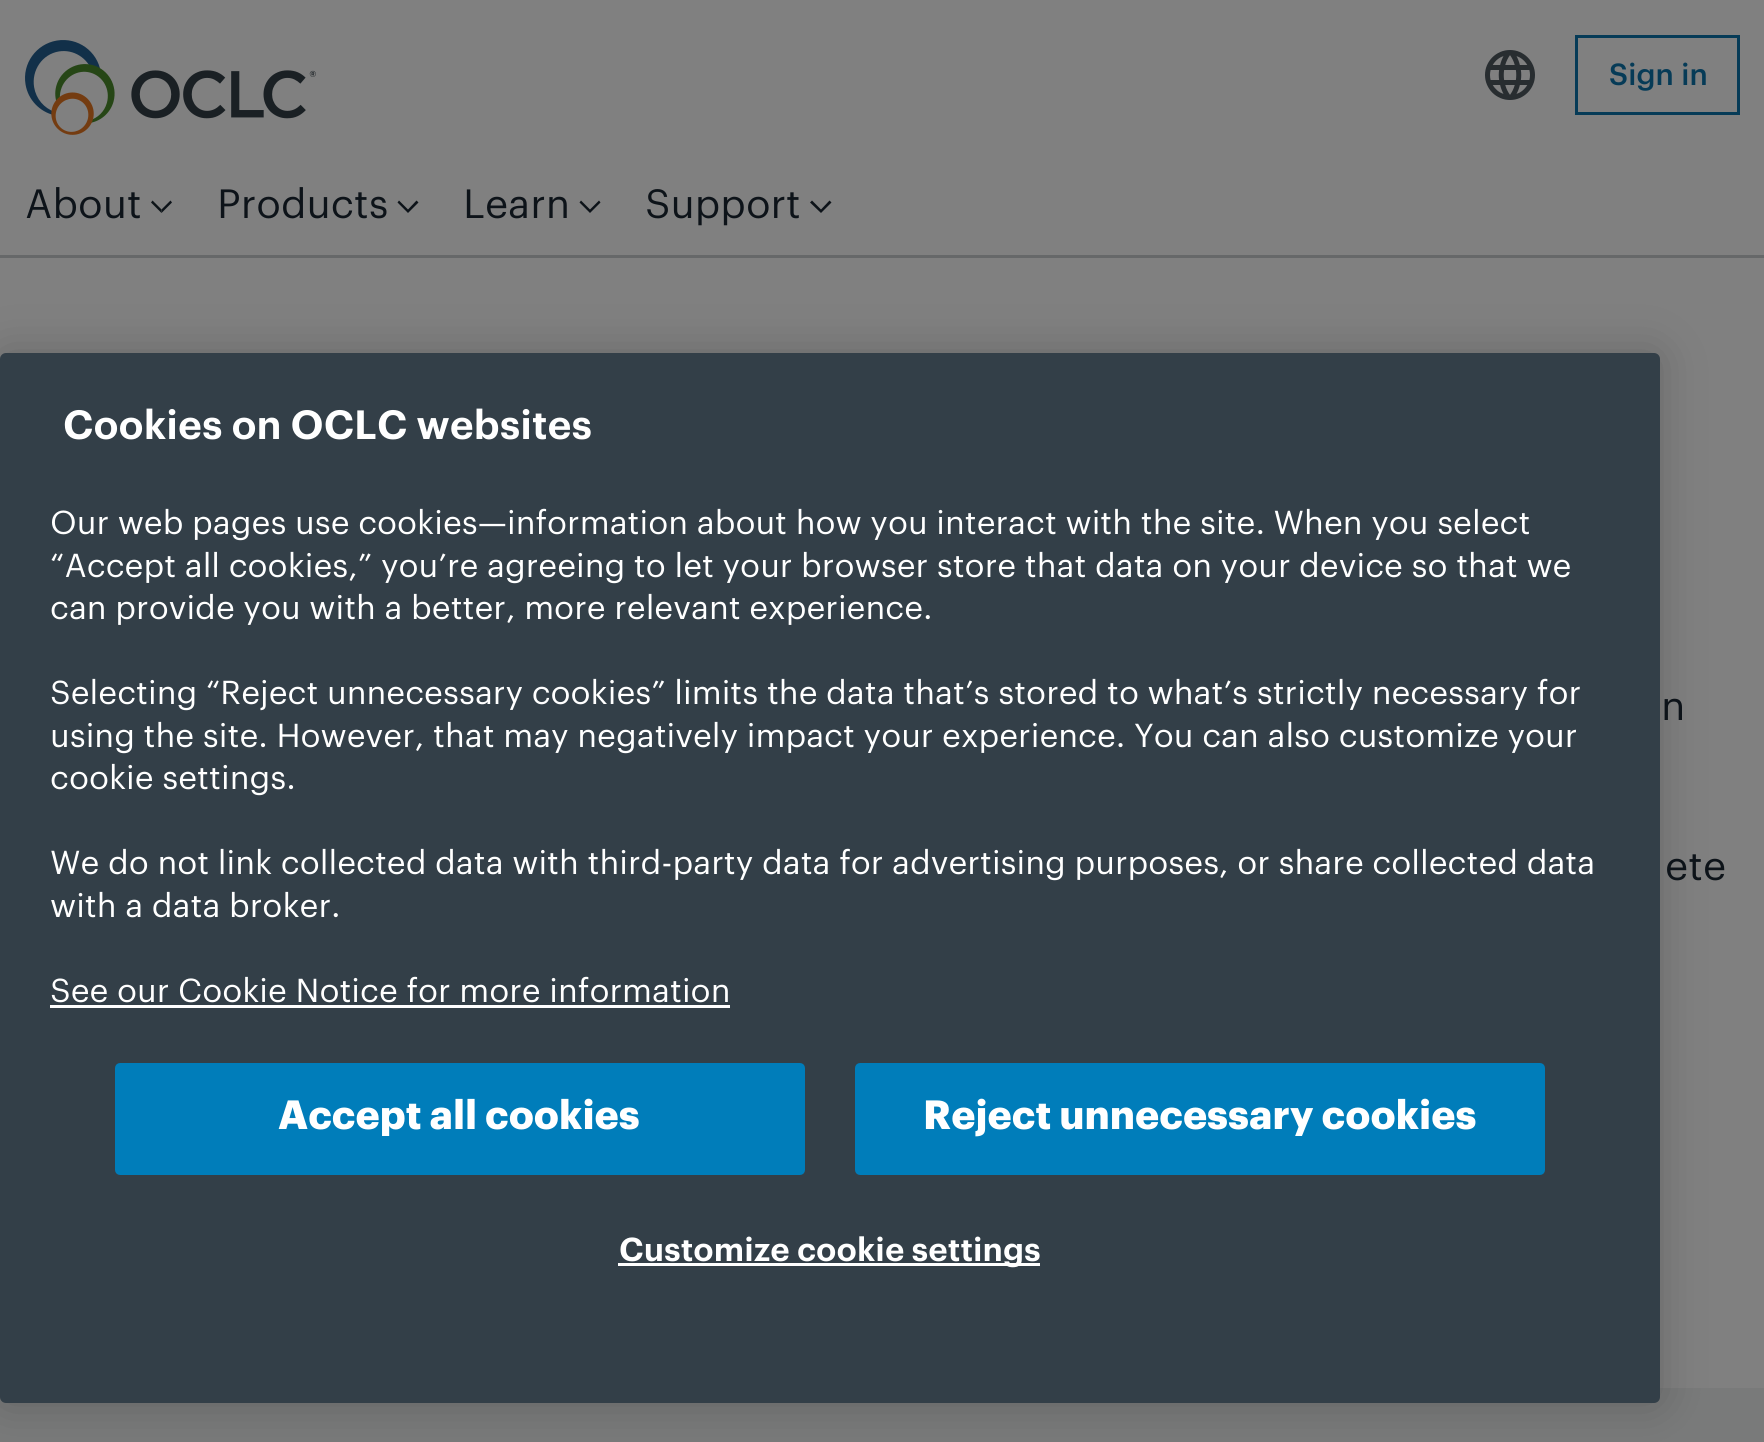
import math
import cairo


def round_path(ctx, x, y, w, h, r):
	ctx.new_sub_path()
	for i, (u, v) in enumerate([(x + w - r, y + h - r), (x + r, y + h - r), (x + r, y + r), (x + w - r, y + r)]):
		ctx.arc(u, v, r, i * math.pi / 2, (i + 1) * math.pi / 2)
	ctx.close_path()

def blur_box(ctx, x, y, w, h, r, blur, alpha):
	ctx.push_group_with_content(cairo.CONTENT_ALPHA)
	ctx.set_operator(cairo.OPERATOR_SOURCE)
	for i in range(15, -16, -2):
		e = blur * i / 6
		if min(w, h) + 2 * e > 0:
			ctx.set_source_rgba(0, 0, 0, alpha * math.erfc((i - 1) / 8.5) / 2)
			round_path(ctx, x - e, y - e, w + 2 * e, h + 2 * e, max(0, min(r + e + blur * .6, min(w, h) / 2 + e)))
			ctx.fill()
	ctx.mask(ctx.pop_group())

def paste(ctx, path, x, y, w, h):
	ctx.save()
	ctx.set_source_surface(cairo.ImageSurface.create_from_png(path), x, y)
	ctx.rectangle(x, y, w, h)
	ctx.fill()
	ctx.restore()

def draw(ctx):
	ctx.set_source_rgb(0.502, 0.502, 0.502)
	ctx.paint()
	ctx.set_source_rgb(0.4, 0.408, 0.412)
	ctx.rectangle(0, 255, 1764, 3)
	ctx.fill()
	paste(ctx, 'media/1.png', 25, 40, 291, 95)
	paste(ctx, 'media/2.png', 1485, 50, 50, 50)
	ctx.rectangle(1576.5, 36.5, 162, 77)
	ctx.set_source_rgb(0.027, 0.231, 0.341)
	ctx.set_line_width(3)
	ctx.stroke()
	ctx.select_font_face('Graphik Medium')
	ctx.set_font_size(30)
	ctx.move_to(1609, 85)
	ctx.show_text('Sign in')
	ctx.select_font_face('Graphik')
	ctx.set_font_size(40)
	ctx.set_source_rgb(0.051, 0.078, 0.098)
	ctx.move_to(25, 218)
	ctx.show_text('About')
	ctx.new_path()
	ctx.move_to(172, 202.5)
	ctx.line_to(161.5, 213)
	ctx.line_to(161.5, 209.5)
	ctx.line_to(170.5, 200.5)
	ctx.close_path()
	ctx.fill()
	ctx.set_source_rgba(0, 0.031, 0.051, 0.9)
	ctx.new_path()
	ctx.move_to(161.5, 213)
	ctx.line_to(151, 202.5)
	ctx.line_to(152.5, 200.5)
	ctx.line_to(161.5, 209.5)
	ctx.close_path()
	ctx.fill()
	ctx.set_source_rgb(0.051, 0.078, 0.098)
	ctx.move_to(217, 218)
	ctx.show_text('Products')
	ctx.new_path()
	ctx.move_to(418.5, 202.5)
	ctx.line_to(408, 213)
	ctx.line_to(408, 209.5)
	ctx.line_to(416.5, 200.5)
	ctx.close_path()
	ctx.move_to(408, 213)
	ctx.line_to(397.5, 202.5)
	ctx.line_to(399, 200.5)
	ctx.line_to(408, 209.5)
	ctx.close_path()
	ctx.fill()
	ctx.move_to(463, 218)
	ctx.show_text('Learn')
	ctx.new_path()
	ctx.move_to(600.5, 202.5)
	ctx.line_to(590, 213)
	ctx.line_to(590, 209.5)
	ctx.line_to(599, 200.5)
	ctx.close_path()
	ctx.move_to(590, 213)
	ctx.line_to(579.5, 202.5)
	ctx.line_to(581, 200.5)
	ctx.line_to(590, 209.5)
	ctx.close_path()
	ctx.fill()
	ctx.move_to(645, 218)
	ctx.show_text('Support')
	ctx.new_path()
	ctx.move_to(831.5, 202.5)
	ctx.line_to(821, 213)
	ctx.line_to(821, 209.5)
	ctx.line_to(829.5, 200.5)
	ctx.close_path()
	ctx.move_to(821, 213)
	ctx.line_to(810, 202.5)
	ctx.line_to(812, 200.5)
	ctx.line_to(821, 209.5)
	ctx.close_path()
	ctx.fill()
	ctx.set_source_rgb(0.475, 0.478, 0.478)
	ctx.rectangle(0, 1388, 1764, 54)
	ctx.fill()
	ctx.set_source_rgb(0, 0, 0)
	blur_box(ctx, 0, 353, 1660, 1050, 6, 22.5, 0.2)
	ctx.set_source_rgb(0.2, 0.247, 0.282)
	round_path(ctx, 0, 353, 1660, 1050, 6)
	ctx.fill()
	ctx.select_font_face('Graphik SemiBold')
	ctx.set_source_rgb(1, 1, 1)
	ctx.move_to(63, 439)
	ctx.show_text('Cookies on OCLC websites')
	ctx.select_font_face('Graphik')
	ctx.set_font_size(32.5)
	for x, y, s in [
		(50, 534, 'Our web pages use cookies—information about how you interact with the site. When you select'),
		(50, 577, '“Accept all cookies,” you’re agreeing to let your browser store that data on your device so that we'),
		(50, 619, 'can provide you with a better, more relevant experience.'),
		(50, 704, 'Selecting “Reject unnecessary cookies” limits the data that’s stored to what’s strictly necessary for'),
		(50, 747, 'using the site. However, that may negatively impact your experience. You can also customize your'),
		(50, 789, 'cookie settings.'),
		(50, 874, 'We do not link collected data with third-party data for advertising purposes, or share collected data'),
		(50, 917, 'with a data broker.'),
		(50, 1002, 'See our Cookie Notice for more information'),
	]:
		ctx.move_to(x, y)
		ctx.show_text(s)
	ctx.rectangle(50, 1005, 680, 3)
	ctx.fill()
	ctx.set_source_rgb(0, 0.49, 0.729)
	round_path(ctx, 116.5, 1064.5, 687, 109, 3.5)
	ctx.fill_preserve()
	ctx.stroke()
	ctx.select_font_face('Graphik', cairo.FONT_SLANT_NORMAL, cairo.FONT_WEIGHT_BOLD)
	ctx.set_font_size(40)
	ctx.set_source_rgb(1, 1, 1)
	ctx.move_to(278, 1129)
	ctx.show_text('Accept all cookies')
	ctx.set_source_rgb(0, 0.49, 0.729)
	round_path(ctx, 856.5, 1064.5, 687, 109, 3.5)
	ctx.fill_preserve()
	ctx.stroke()
	ctx.set_source_rgb(1, 1, 1)
	ctx.move_to(923, 1129)
	ctx.show_text('Reject unnecessary cookies')
	ctx.rectangle(618, 1263, 422, 3)
	ctx.fill()
	ctx.select_font_face('Graphik SemiBold')
	ctx.set_font_size(32.5)
	ctx.move_to(619, 1261)
	ctx.show_text('Customize cookie settings')
	ctx.select_font_face('Graphik')
	ctx.set_font_size(40)
	ctx.set_source_rgb(0.051, 0.078, 0.098)
	ctx.move_to(1661, 720)
	ctx.show_text('n')
	ctx.move_to(1665, 880)
	ctx.show_text('ete')


surface = cairo.ImageSurface(cairo.FORMAT_RGB24, 1764, 1442)
ctx = cairo.Context(surface)
options = cairo.FontOptions()
options.set_hint_metrics(cairo.HINT_METRICS_OFF)
options.set_hint_style(cairo.HINT_STYLE_NONE)
ctx.set_font_options(options)
ctx.set_miter_limit(4)
draw(ctx)
surface.write_to_png('image.png')
